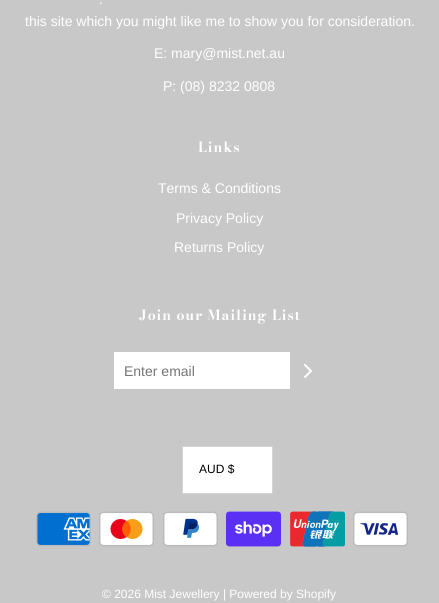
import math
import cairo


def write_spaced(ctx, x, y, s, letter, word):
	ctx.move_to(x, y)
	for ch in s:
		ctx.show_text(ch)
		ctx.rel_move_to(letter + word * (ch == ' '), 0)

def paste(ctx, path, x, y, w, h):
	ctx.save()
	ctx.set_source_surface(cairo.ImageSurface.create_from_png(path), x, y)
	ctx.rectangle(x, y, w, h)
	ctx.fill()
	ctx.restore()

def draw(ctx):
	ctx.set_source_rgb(0.784, 0.784, 0.784)
	ctx.paint()
	ctx.select_font_face('Liberation Sans')
	ctx.set_font_size(14)
	ctx.set_source_rgb(1, 1, 1)
	for x, y, s in [
		(99, 4, '.'),
		(25, 26, 'this site which you might like me to show you for consideration.'),
		(154, 58, 'E: mary@mist.net.au'),
		(163, 91, 'P: (08) 8232 0808'),
	]:
		ctx.move_to(x, y)
		ctx.show_text(s)
	ctx.select_font_face('Bodoni Moda', cairo.FONT_SLANT_NORMAL, cairo.FONT_WEIGHT_BOLD)
	write_spaced(ctx, 198, 152, 'Links', 1, 0)
	ctx.select_font_face('Liberation Sans')
	for x, y, s in [
		(158, 193, 'Terms & Conditions'),
		(176, 223, 'Privacy Policy'),
		(174, 252, 'Returns Policy'),
	]:
		ctx.move_to(x, y)
		ctx.show_text(s)
	ctx.select_font_face('Bodoni Moda', cairo.FONT_SLANT_NORMAL, cairo.FONT_WEIGHT_BOLD)
	write_spaced(ctx, 139, 320, 'Join our Mailing List', 1, 0)
	ctx.rectangle(114, 352, 176, 37)
	ctx.fill()
	ctx.select_font_face('Liberation Sans')
	ctx.set_source_rgb(0.459, 0.459, 0.459)
	ctx.move_to(124, 376)
	ctx.show_text('Enter email')
	ctx.new_path()
	ctx.move_to(305, 377)
	ctx.line_to(311, 371)
	ctx.line_to(305, 365)
	ctx.set_source_rgb(1, 1, 1)
	ctx.set_line_cap(cairo.LINE_CAP_ROUND)
	ctx.set_line_join(cairo.LINE_JOIN_ROUND)
	ctx.stroke()
	ctx.rectangle(182.5, 446.5, 90, 47)
	ctx.fill_preserve()
	ctx.set_source_rgb(0.831, 0.831, 0.831)
	ctx.set_line_width(1)
	ctx.set_line_cap(cairo.LINE_CAP_BUTT)
	ctx.set_line_join(cairo.LINE_JOIN_MITER)
	ctx.stroke()
	ctx.set_font_size(12)
	ctx.set_source_rgb(0, 0, 0)
	ctx.move_to(199, 473)
	ctx.show_text('AUD $')
	paste(ctx, 'media/1.png', 36, 511, 55, 36)
	paste(ctx, 'media/2.png', 99, 511, 55, 36)
	paste(ctx, 'media/3.png', 163, 511, 55, 36)
	paste(ctx, 'media/4.png', 226, 511, 55, 36)
	paste(ctx, 'media/5.png', 290, 511, 55, 36)
	paste(ctx, 'media/6.png', 353, 511, 55, 36)
	ctx.set_source_rgb(1, 1, 1)
	ctx.move_to(102, 598)
	ctx.show_text('© 2026 Mist Jewellery | Powered by Shopify')


surface = cairo.ImageSurface(cairo.FORMAT_RGB24, 439, 603)
ctx = cairo.Context(surface)
options = cairo.FontOptions()
options.set_hint_metrics(cairo.HINT_METRICS_OFF)
options.set_hint_style(cairo.HINT_STYLE_NONE)
ctx.set_font_options(options)
ctx.set_miter_limit(4)
draw(ctx)
surface.write_to_png('image.png')
